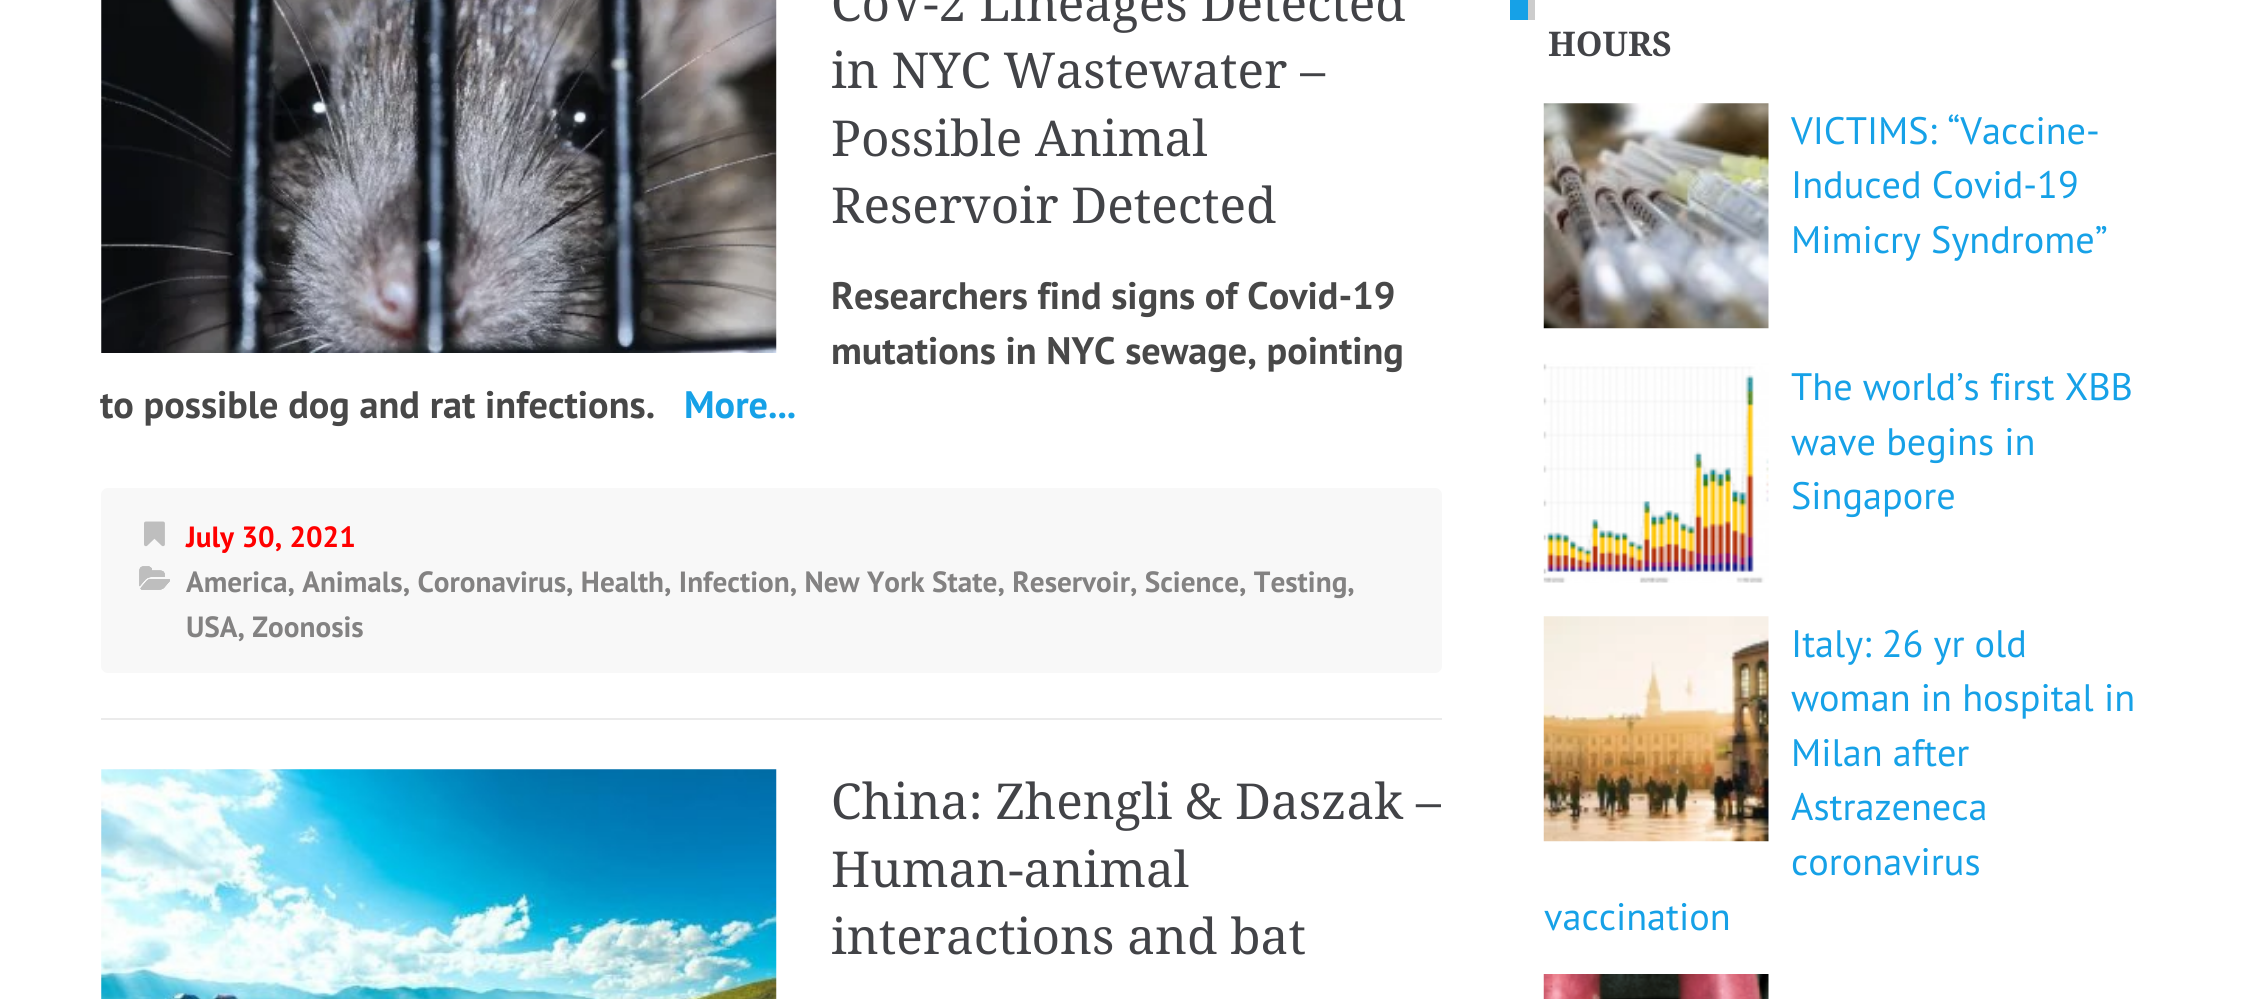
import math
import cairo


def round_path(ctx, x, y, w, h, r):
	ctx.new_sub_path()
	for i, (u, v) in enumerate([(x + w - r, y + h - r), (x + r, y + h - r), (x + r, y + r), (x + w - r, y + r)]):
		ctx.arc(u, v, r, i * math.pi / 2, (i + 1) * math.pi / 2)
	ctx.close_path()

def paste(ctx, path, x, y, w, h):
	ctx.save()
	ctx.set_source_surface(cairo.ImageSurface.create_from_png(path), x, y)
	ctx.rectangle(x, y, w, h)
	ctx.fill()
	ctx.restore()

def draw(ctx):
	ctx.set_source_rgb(1, 1, 1)
	ctx.paint()
	ctx.select_font_face('Droid Serif')
	ctx.set_font_size(49.5)
	ctx.set_source_rgb(0.259, 0.263, 0.278)
	for x, y, s in [
		(831, 21, 'CoV-2 Lineages Detected'),
		(831, 88, 'in NYC Wastewater –'),
		(831, 156, 'Possible Animal'),
		(831, 223, 'Reservoir Detected'),
	]:
		ctx.move_to(x, y)
		ctx.show_text(s)
	ctx.select_font_face('PT Sans', cairo.FONT_SLANT_NORMAL, cairo.FONT_WEIGHT_BOLD)
	ctx.set_font_size(38.25)
	ctx.set_source_rgb(0.282, 0.282, 0.282)
	for x, y, s in [
		(831, 309, 'Researchers find signs of Covid-19'),
		(831, 364, 'mutations in NYC sewage, pointing'),
		(100, 418, 'to possible dog and rat infections.'),
	]:
		ctx.move_to(x, y)
		ctx.show_text(s)
	ctx.set_source_rgb(0.086, 0.631, 0.906)
	ctx.move_to(684, 418)
	ctx.show_text('More...')
	ctx.set_source_rgb(0.969, 0.969, 0.969)
	round_path(ctx, 101, 488, 1341, 185, 7)
	ctx.fill()
	paste(ctx, 'media/1.png', 144, 521, 21, 26)
	ctx.set_font_size(29.25)
	ctx.set_source_rgb(1, 0, 0)
	ctx.move_to(186, 547)
	ctx.show_text('July 30, 2021')
	paste(ctx, 'media/6.png', 139, 566, 31, 24)
	paste(ctx, 'media/2.png', 139, 566, 31, 24)
	paste(ctx, 'media/3.png', 139, 566, 31, 24)
	paste(ctx, 'media/4.png', 139, 566, 31, 24)
	paste(ctx, 'media/5.png', 140, 566, 30, 24)
	ctx.set_source_rgb(0.514, 0.51, 0.51)
	ctx.move_to(186, 592)
	ctx.show_text('America, Animals, Coronavirus, Health, Infection, New York State, Reservoir, Science, Testing,')
	ctx.move_to(186, 637)
	ctx.show_text('USA, Zoonosis')
	paste(ctx, 'media/7.png', 101, 0, 676, 353)
	ctx.set_source_rgb(0.918, 0.918, 0.918)
	ctx.rectangle(101, 718, 1341, 2)
	ctx.fill()
	paste(ctx, 'media/8.png', 101, 769, 676, 230)
	ctx.select_font_face('Droid Serif')
	ctx.set_font_size(49.5)
	ctx.set_source_rgb(0.259, 0.263, 0.278)
	for x, y, s in [
		(831, 819, 'China: Zhengli & Daszak –'),
		(831, 887, 'Human-animal'),
		(831, 954, 'interactions and bat'),
	]:
		ctx.move_to(x, y)
		ctx.show_text(s)
	ctx.set_source_rgb(0.086, 0.631, 0.906)
	ctx.rectangle(1510, 0, 18, 20)
	ctx.fill()
	ctx.set_source_rgb(0.8, 0.8, 0.8)
	ctx.rectangle(1528, 0, 7, 20)
	ctx.fill()
	ctx.select_font_face('Droid Serif', cairo.FONT_SLANT_NORMAL, cairo.FONT_WEIGHT_BOLD)
	ctx.set_font_size(34)
	ctx.set_source_rgb(0.259, 0.263, 0.278)
	ctx.move_to(1548, 56)
	ctx.show_text('HOURS')
	paste(ctx, 'media/9.png', 1543, 103, 226, 226)
	ctx.select_font_face('PT Sans')
	ctx.set_font_size(38.25)
	ctx.set_source_rgb(0.086, 0.631, 0.906)
	for x, y, s in [
		(1791, 144, 'VICTIMS: “Vaccine-'),
		(1791, 198, 'Induced Covid-19'),
		(1791, 253, 'Mimicry Syndrome”'),
	]:
		ctx.move_to(x, y)
		ctx.show_text(s)
	paste(ctx, 'media/10.png', 1543, 363, 226, 220)
	for x, y, s in [
		(1791, 400, 'The world’s first XBB'),
		(1791, 455, 'wave begins in'),
		(1791, 509, 'Singapore'),
	]:
		ctx.move_to(x, y)
		ctx.show_text(s)
	paste(ctx, 'media/11.png', 1543, 616, 226, 226)
	for x, y, s in [
		(1791, 657, 'Italy: 26 yr old'),
		(1791, 711, 'woman in hospital in'),
		(1791, 766, 'Milan after'),
		(1791, 820, 'Astrazeneca'),
		(1791, 875, 'coronavirus'),
		(1544, 930, 'vaccination'),
	]:
		ctx.move_to(x, y)
		ctx.show_text(s)
	paste(ctx, 'media/12.png', 1543, 974, 226, 25)


surface = cairo.ImageSurface(cairo.FORMAT_RGB24, 2247, 999)
ctx = cairo.Context(surface)
options = cairo.FontOptions()
options.set_hint_metrics(cairo.HINT_METRICS_OFF)
options.set_hint_style(cairo.HINT_STYLE_NONE)
ctx.set_font_options(options)
ctx.set_miter_limit(4)
draw(ctx)
surface.write_to_png('image.png')
